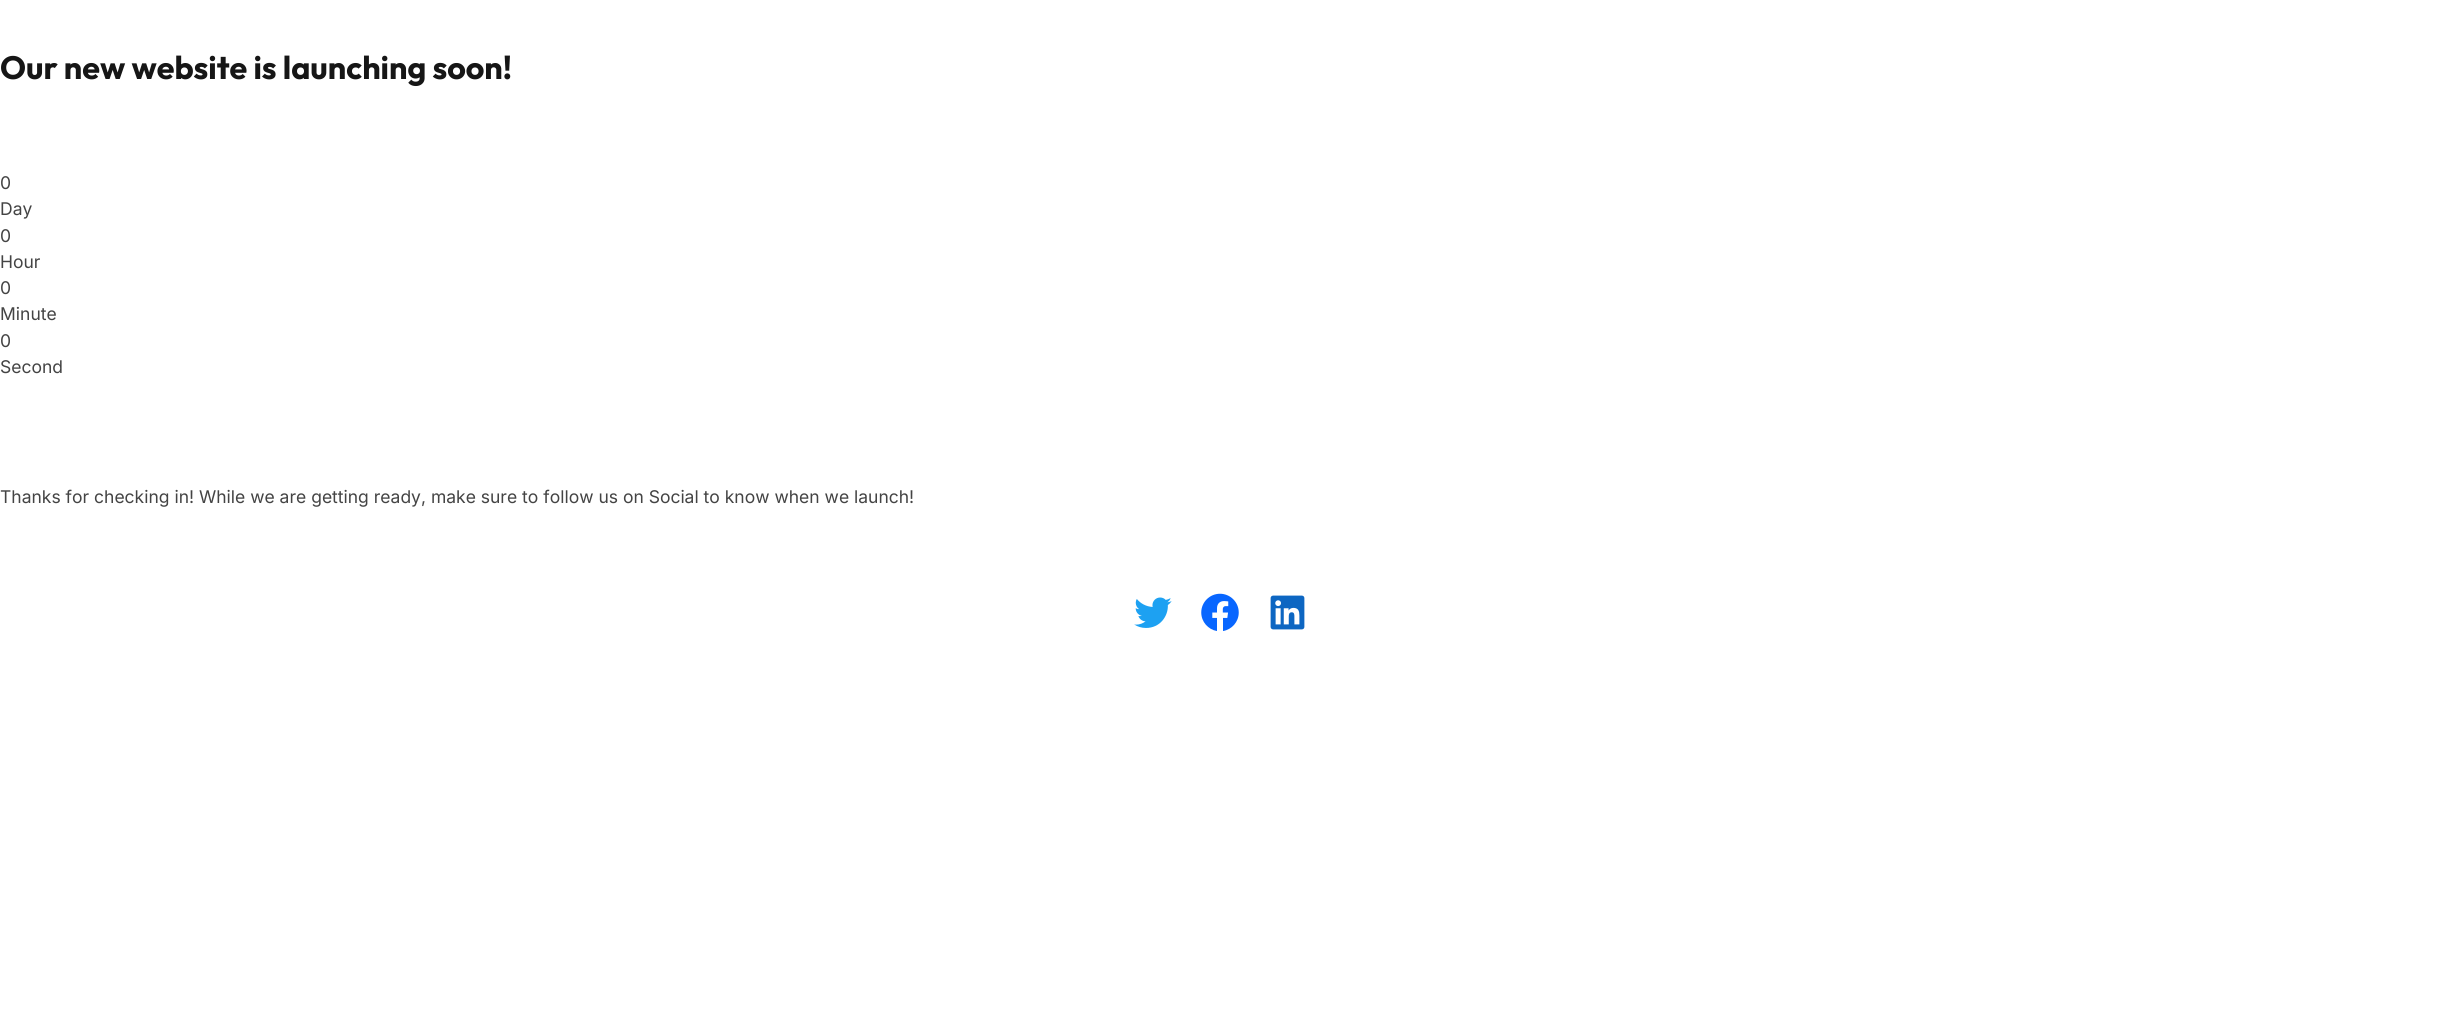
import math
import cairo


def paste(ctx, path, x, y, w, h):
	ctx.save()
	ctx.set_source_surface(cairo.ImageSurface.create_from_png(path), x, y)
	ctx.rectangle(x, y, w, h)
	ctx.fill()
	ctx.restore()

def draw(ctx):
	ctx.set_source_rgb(1, 1, 1)
	ctx.paint()
	ctx.select_font_face('Outfit', cairo.FONT_SLANT_NORMAL, cairo.FONT_WEIGHT_BOLD)
	ctx.set_font_size(32.25)
	ctx.set_source_rgb(0.086, 0.086, 0.086)
	ctx.move_to(0, 79)
	ctx.show_text('Our new website is launching soon!')
	ctx.select_font_face('Inter')
	ctx.set_font_size(17.5)
	ctx.set_source_rgb(0.267, 0.267, 0.267)
	for x, y, s in [
		(0, 189, '0'),
		(0, 215, 'Day'),
		(0, 242, '0'),
		(0, 268, 'Hour'),
		(0, 294, '0'),
		(0, 320, 'Minute'),
		(0, 347, '0'),
		(0, 373, 'Second'),
		(0, 503, 'Thanks for checking in! While we are getting ready, make sure to follow us on Social to know when we launch!'),
	]:
		ctx.move_to(x, y)
		ctx.show_text(s)
	paste(ctx, 'media/1.png', 1134, 597, 38, 31)
	paste(ctx, 'media/2.png', 1201, 593, 38, 38)
	paste(ctx, 'media/3.png', 1270, 595, 35, 35)


surface = cairo.ImageSurface(cairo.FORMAT_RGB24, 2438, 1033)
ctx = cairo.Context(surface)
options = cairo.FontOptions()
options.set_hint_metrics(cairo.HINT_METRICS_OFF)
options.set_hint_style(cairo.HINT_STYLE_NONE)
ctx.set_font_options(options)
ctx.set_miter_limit(4)
draw(ctx)
surface.write_to_png('image.png')
